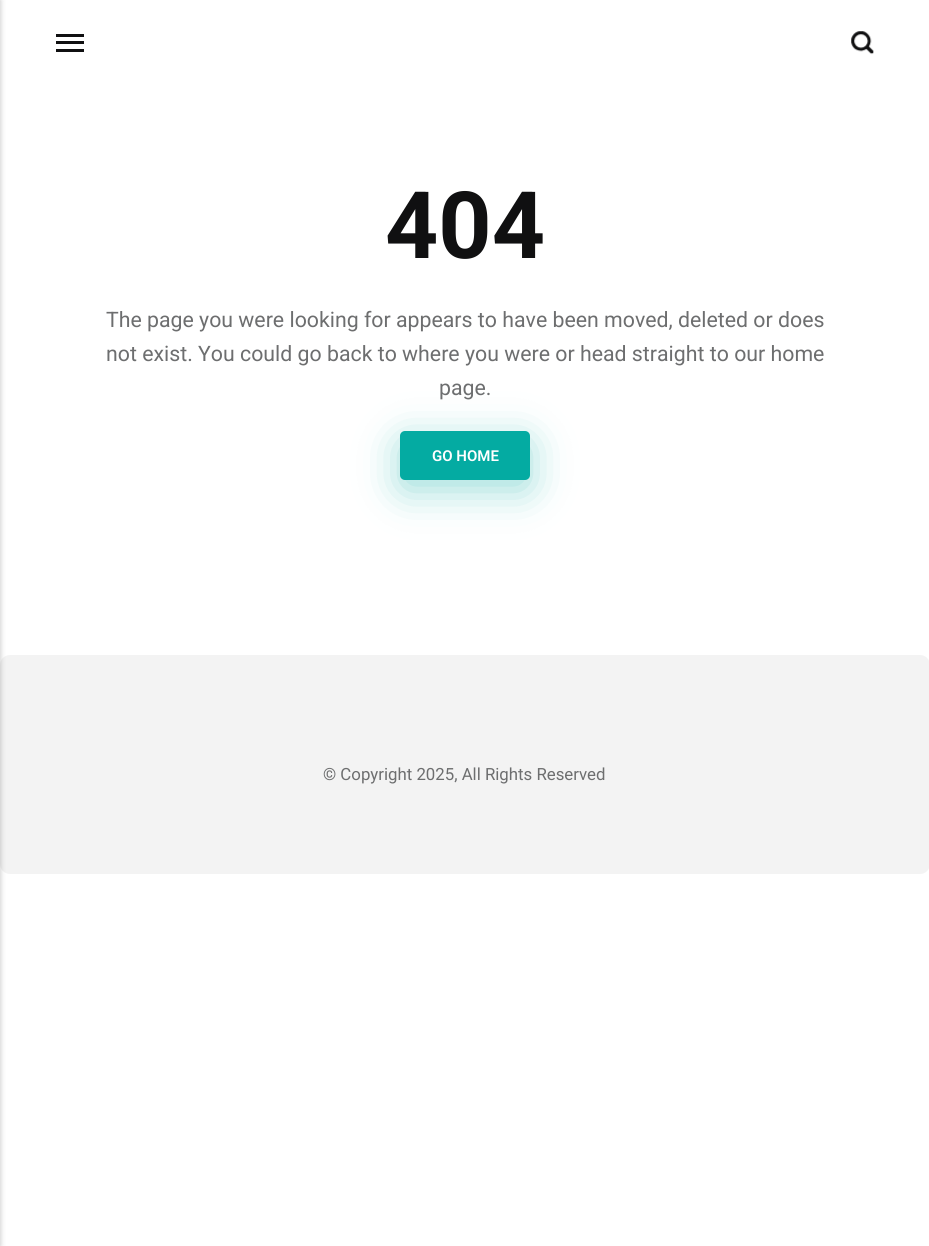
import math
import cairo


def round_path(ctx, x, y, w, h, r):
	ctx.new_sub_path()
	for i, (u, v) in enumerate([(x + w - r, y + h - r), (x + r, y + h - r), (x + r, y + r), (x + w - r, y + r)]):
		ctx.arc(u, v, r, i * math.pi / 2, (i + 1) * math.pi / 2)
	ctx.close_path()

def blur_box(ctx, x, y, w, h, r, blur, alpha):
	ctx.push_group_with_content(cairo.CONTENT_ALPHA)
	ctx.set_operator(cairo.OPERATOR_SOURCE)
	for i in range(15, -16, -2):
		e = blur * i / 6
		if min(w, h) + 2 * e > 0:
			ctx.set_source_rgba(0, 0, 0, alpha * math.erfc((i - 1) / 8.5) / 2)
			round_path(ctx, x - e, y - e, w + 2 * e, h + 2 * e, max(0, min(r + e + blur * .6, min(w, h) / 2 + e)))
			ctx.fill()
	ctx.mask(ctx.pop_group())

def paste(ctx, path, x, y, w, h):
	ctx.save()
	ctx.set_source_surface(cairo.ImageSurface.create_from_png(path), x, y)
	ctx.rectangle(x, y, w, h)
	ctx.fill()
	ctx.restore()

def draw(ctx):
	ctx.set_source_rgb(1, 1, 1)
	ctx.paint()
	ctx.set_source_rgb(0.953, 0.953, 0.953)
	round_path(ctx, 0, 655, 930, 219, 10)
	ctx.fill()
	ctx.set_source_rgb(0, 0, 0)
	blur_box(ctx, -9, 0, 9, 1246, 0, 3, 0.25)
	ctx.set_source_rgb(0.063, 0.063, 0.067)
	ctx.rectangle(56, 41, 28, 3)
	ctx.rectangle(56, 34, 28, 3)
	ctx.rectangle(56, 49, 28, 3)
	ctx.fill()
	paste(ctx, 'media/1.png', 851, 31, 23, 24)
	ctx.select_font_face('Roboto', cairo.FONT_SLANT_NORMAL, cairo.FONT_WEIGHT_BOLD)
	ctx.set_font_size(93)
	ctx.move_to(385, 258)
	ctx.show_text('404')
	ctx.select_font_face('Roboto')
	ctx.set_font_size(21.3)
	ctx.set_source_rgb(0.427, 0.431, 0.435)
	for x, y, s in [
		(106, 327, 'The page you were looking for appears to have been moved, deleted or does'),
		(106, 361, 'not exist. You could go back to where you were or head straight to our home'),
		(439, 395, 'page.'),
	]:
		ctx.move_to(x, y)
		ctx.show_text(s)
	ctx.set_source_rgb(0.016, 0.671, 0.635)
	blur_box(ctx, 400, 441, 130, 49, 5, 20, 0.4)
	ctx.set_source_rgb(0.016, 0.671, 0.635)
	round_path(ctx, 400, 431, 130, 49, 5)
	ctx.fill()
	ctx.select_font_face('Roboto SemiBold')
	ctx.set_font_size(15)
	ctx.set_source_rgb(1, 1, 1)
	ctx.move_to(432, 461)
	ctx.show_text('GO HOME')
	ctx.select_font_face('Roboto')
	ctx.set_font_size(16.8)
	ctx.set_source_rgb(0.427, 0.431, 0.435)
	ctx.move_to(323, 780)
	ctx.show_text('© Copyright 2025, All Rights Reserved')


surface = cairo.ImageSurface(cairo.FORMAT_RGB24, 929, 1246)
ctx = cairo.Context(surface)
options = cairo.FontOptions()
options.set_hint_metrics(cairo.HINT_METRICS_OFF)
options.set_hint_style(cairo.HINT_STYLE_NONE)
ctx.set_font_options(options)
ctx.set_miter_limit(4)
draw(ctx)
surface.write_to_png('image.png')
